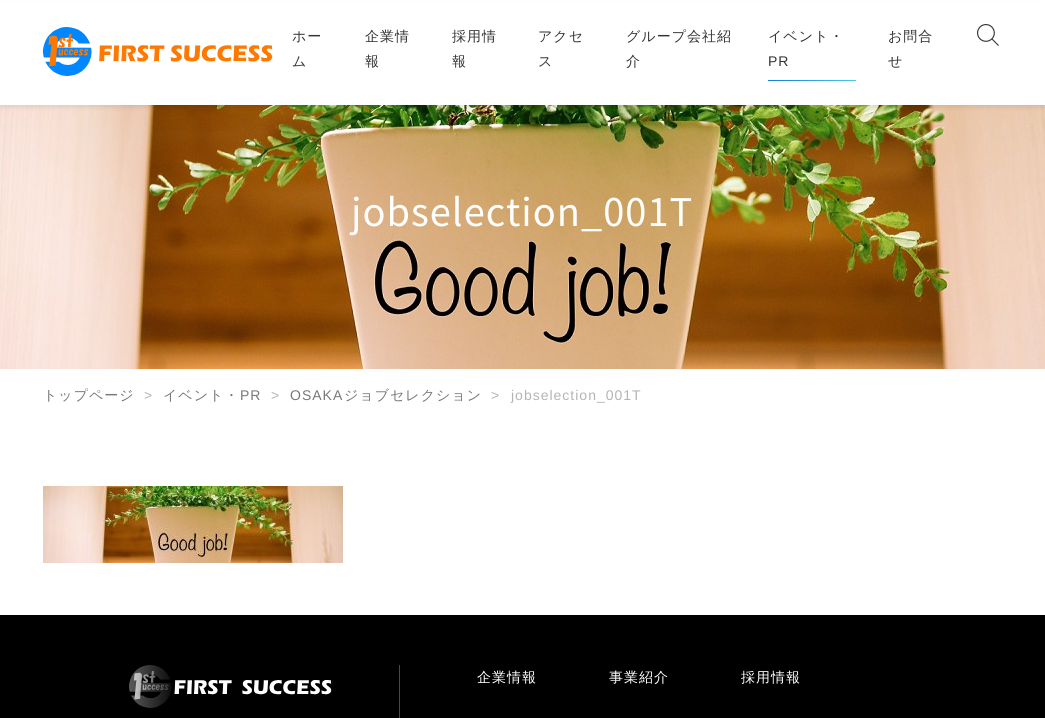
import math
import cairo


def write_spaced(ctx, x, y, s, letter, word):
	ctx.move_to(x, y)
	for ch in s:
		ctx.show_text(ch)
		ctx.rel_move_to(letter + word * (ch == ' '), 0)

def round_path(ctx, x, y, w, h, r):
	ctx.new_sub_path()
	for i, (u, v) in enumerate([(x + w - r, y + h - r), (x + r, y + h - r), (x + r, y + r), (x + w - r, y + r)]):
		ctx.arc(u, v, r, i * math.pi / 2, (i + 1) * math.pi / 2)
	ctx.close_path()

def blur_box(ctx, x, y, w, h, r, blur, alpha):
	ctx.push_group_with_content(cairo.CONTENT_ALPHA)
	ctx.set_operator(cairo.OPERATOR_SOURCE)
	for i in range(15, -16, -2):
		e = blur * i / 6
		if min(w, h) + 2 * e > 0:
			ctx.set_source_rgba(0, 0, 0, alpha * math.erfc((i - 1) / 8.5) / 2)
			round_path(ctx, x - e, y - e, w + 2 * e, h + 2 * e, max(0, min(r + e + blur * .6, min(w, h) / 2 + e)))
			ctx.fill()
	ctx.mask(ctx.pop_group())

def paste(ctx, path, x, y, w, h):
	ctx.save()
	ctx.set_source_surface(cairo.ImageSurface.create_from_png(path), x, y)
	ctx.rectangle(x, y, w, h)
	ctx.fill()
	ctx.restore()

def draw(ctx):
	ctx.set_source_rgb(1, 1, 1)
	ctx.paint()
	paste(ctx, 'media/3.png', 0, 105, 1045, 264)
	ctx.set_source_rgb(0, 0, 0)
	blur_box(ctx, 0, 3, 1045, 105, 0, 2, 0.07)
	ctx.set_source_rgb(1, 1, 1)
	ctx.rectangle(0, 1, 1045, 104)
	ctx.fill()
	paste(ctx, 'media/1.png', 43, 27, 230, 49)
	ctx.select_font_face('WenQuanYi Zen Hei Medium')
	ctx.set_font_size(14)
	ctx.set_source_rgb(0.204, 0.204, 0.204)
	for x, y, s in [
		(292, 41, 'ホー'),
		(292, 66, 'ム'),
		(365, 41, '企業情'),
		(365, 66, '報'),
		(452, 41, '採用情'),
		(452, 66, '報'),
		(538, 41, 'アクセ'),
		(538, 66, 'ス'),
		(626, 41, 'グループ会社紹'),
		(626, 66, '介'),
		(768, 41, 'イベント・'),
	]:
		write_spaced(ctx, x, y, s, 1, 0)
	ctx.select_font_face('Liberation Sans')
	write_spaced(ctx, 768, 66, 'PR', 1, 0)
	gradient = cairo.LinearGradient(768, 81, 856, 81)
	gradient.add_color_stop_rgba(0, 0.071, 0.49, 0.839, 1)
	gradient.add_color_stop_rgba(1, 0.306, 0.788, 0.898, 1)
	ctx.set_source(gradient)
	ctx.rectangle(768, 80, 88, 1)
	ctx.fill()
	ctx.select_font_face('WenQuanYi Zen Hei Medium')
	ctx.set_source_rgb(0.204, 0.204, 0.204)
	write_spaced(ctx, 888, 41, 'お問合', 1, 0)
	write_spaced(ctx, 888, 66, 'せ', 1, 0)
	paste(ctx, 'media/2.png', 977, 24, 22, 22)
	ctx.select_font_face('Noto Sans JP')
	ctx.set_font_size(38)
	ctx.set_source_rgb(1, 1, 1)
	write_spaced(ctx, 351, 226, 'jobselection_001T', 1, 0)
	ctx.select_font_face('WenQuanYi Zen Hei Medium')
	ctx.set_font_size(14)
	ctx.set_source_rgb(0.471, 0.471, 0.471)
	write_spaced(ctx, 43, 400, 'トップページ', 1, 0)
	ctx.select_font_face('Liberation Sans')
	ctx.set_source_rgb(0.706, 0.706, 0.706)
	write_spaced(ctx, 144, 400, '>', 1, 0)
	ctx.select_font_face('WenQuanYi Zen Hei Medium')
	ctx.set_source_rgb(0.471, 0.471, 0.471)
	write_spaced(ctx, 163, 400, 'イベント・', 1, 0)
	ctx.select_font_face('Liberation Sans')
	write_spaced(ctx, 240, 400, 'PR', 1, 0)
	ctx.set_source_rgb(0.706, 0.706, 0.706)
	write_spaced(ctx, 271, 400, '>', 1, 0)
	ctx.set_source_rgb(0.471, 0.471, 0.471)
	write_spaced(ctx, 290, 400, 'OSAKA', 1, 0)
	ctx.select_font_face('WenQuanYi Zen Hei Medium')
	write_spaced(ctx, 344, 400, 'ジョブセレクション', 1, 0)
	ctx.select_font_face('Liberation Sans')
	ctx.set_source_rgb(0.706, 0.706, 0.706)
	write_spaced(ctx, 491, 400, '>', 1, 0)
	write_spaced(ctx, 511, 400, 'jobselection_001T', 1, 0)
	paste(ctx, 'media/4.png', 43, 486, 300, 77)
	ctx.set_source_rgb(0, 0, 0)
	ctx.rectangle(0, 615, 1045, 103)
	ctx.fill()
	ctx.set_source_rgb(0.286, 0.286, 0.286)
	ctx.rectangle(399, 665, 1, 53)
	ctx.fill()
	paste(ctx, 'media/5.png', 129, 665, 203, 43)
	ctx.select_font_face('WenQuanYi Zen Hei Medium')
	ctx.set_source_rgb(1, 1, 1)
	for x, y, s in [
		(477, 682, '企業情報'),
		(609, 682, '事業紹介'),
		(741, 682, '採用情報'),
	]:
		write_spaced(ctx, x, y, s, 1, 0)


surface = cairo.ImageSurface(cairo.FORMAT_RGB24, 1045, 718)
ctx = cairo.Context(surface)
options = cairo.FontOptions()
options.set_hint_metrics(cairo.HINT_METRICS_OFF)
options.set_hint_style(cairo.HINT_STYLE_NONE)
ctx.set_font_options(options)
ctx.set_miter_limit(4)
draw(ctx)
surface.write_to_png('image.png')
